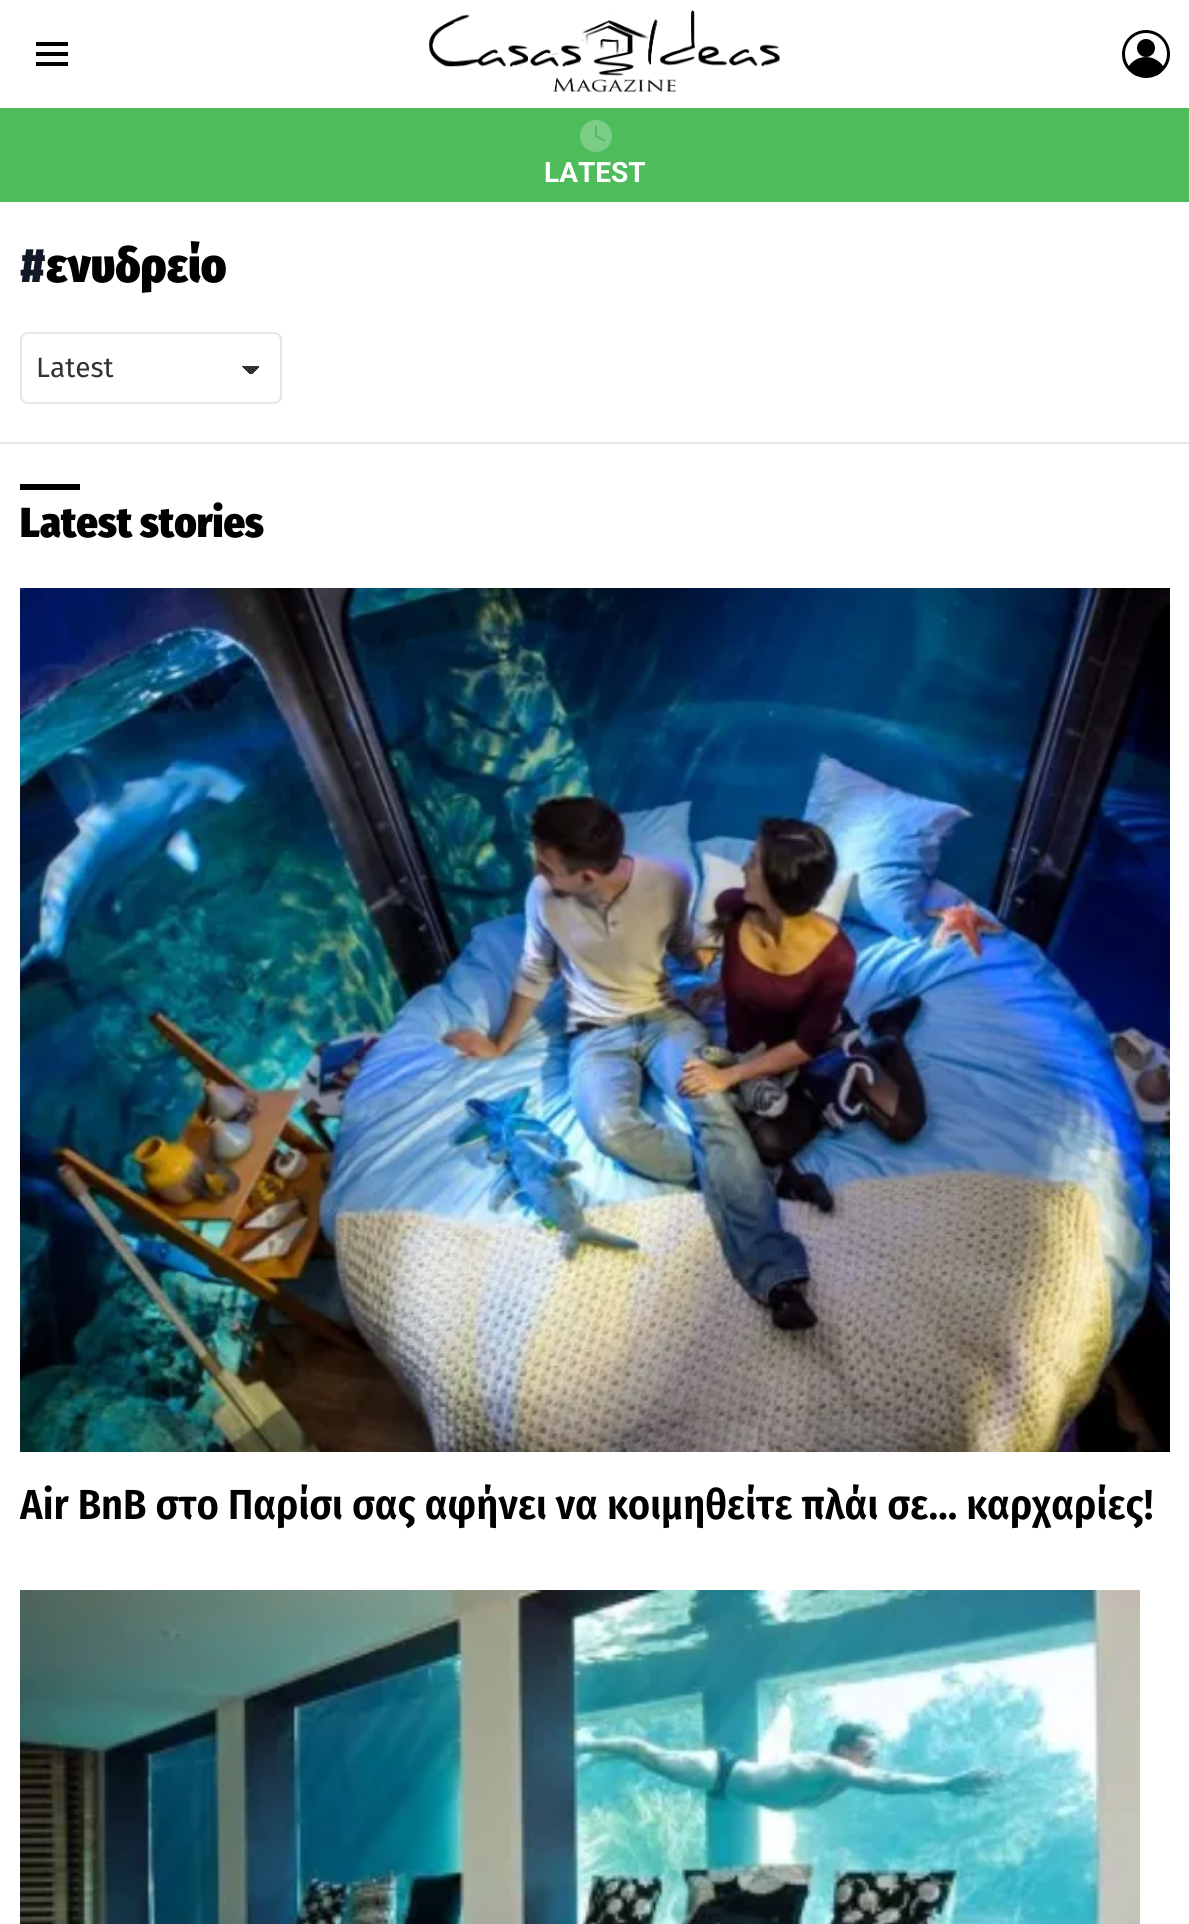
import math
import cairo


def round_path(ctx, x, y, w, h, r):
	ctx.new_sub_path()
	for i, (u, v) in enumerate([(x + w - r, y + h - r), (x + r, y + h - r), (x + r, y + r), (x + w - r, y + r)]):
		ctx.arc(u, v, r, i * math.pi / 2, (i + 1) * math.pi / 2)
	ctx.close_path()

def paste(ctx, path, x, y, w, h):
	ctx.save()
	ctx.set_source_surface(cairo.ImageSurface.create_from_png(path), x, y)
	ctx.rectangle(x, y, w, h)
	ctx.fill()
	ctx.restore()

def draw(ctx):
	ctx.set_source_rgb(1, 1, 1)
	ctx.paint()
	paste(ctx, 'media/1.png', 36, 42, 32, 24)
	paste(ctx, 'media/2.png', 429, 10, 351, 83)
	paste(ctx, 'media/3.png', 1122, 30, 48, 48)
	ctx.set_source_rgb(0.31, 0.737, 0.361)
	ctx.rectangle(0, 108, 1189, 94)
	ctx.fill()
	paste(ctx, 'media/4.png', 580, 120, 32, 32)
	ctx.select_font_face('Roboto', cairo.FONT_SLANT_NORMAL, cairo.FONT_WEIGHT_BOLD)
	ctx.set_font_size(28)
	ctx.set_source_rgb(1, 1, 1)
	ctx.move_to(544, 182)
	ctx.show_text('LATEST')
	ctx.select_font_face('Fira Sans Condensed Black')
	ctx.set_font_size(48)
	ctx.set_source_rgb(0.063, 0.098, 0.145)
	ctx.move_to(20, 282)
	ctx.show_text('#')
	ctx.set_source_rgb(0, 0, 0)
	ctx.move_to(46, 282)
	ctx.show_text('ενυδρείο')
	gradient = cairo.LinearGradient(251, 366, 260, 375)
	gradient.add_color_stop_rgba(0.5, 0.2, 0.2, 0.2, 1)
	gradient.add_color_stop_rgba(0.5, 1, 1, 1, 1)
	ctx.set_source(gradient)
	ctx.rectangle(250, 366, 10, 8)
	ctx.fill()
	gradient = cairo.LinearGradient(241, 375, 250, 366)
	gradient.add_color_stop_rgba(0.5, 1, 1, 1, 1)
	gradient.add_color_stop_rgba(0.5, 0.2, 0.2, 0.2, 1)
	ctx.set_source(gradient)
	ctx.rectangle(240, 366, 10, 8)
	ctx.fill()
	round_path(ctx, 21, 333, 260, 70, 7)
	ctx.set_source_rgb(0.902, 0.902, 0.902)
	ctx.stroke()
	ctx.select_font_face('Fira Sans')
	ctx.set_font_size(28)
	ctx.set_source_rgb(0.2, 0.2, 0.2)
	ctx.move_to(36, 377)
	ctx.show_text('Latest')
	ctx.set_source_rgb(0.902, 0.902, 0.902)
	ctx.rectangle(0, 442, 1189, 2)
	ctx.fill()
	ctx.set_source_rgb(0, 0, 0)
	ctx.rectangle(20, 484, 60, 6)
	ctx.fill()
	ctx.select_font_face('Fira Sans Condensed Black')
	ctx.set_font_size(42)
	ctx.move_to(20, 537)
	ctx.show_text('Latest stories')
	paste(ctx, 'media/5.png', 20, 588, 1150, 864)
	ctx.select_font_face('Fira Sans Condensed SemiBold')
	ctx.move_to(20, 1519)
	ctx.show_text('Air BnB στο Παρίσι σας αφήνει να κοιμηθείτε πλάι σε… καρχαρίες!')
	paste(ctx, 'media/6.png', 20, 1590, 1120, 334)


surface = cairo.ImageSurface(cairo.FORMAT_RGB24, 1189, 1924)
ctx = cairo.Context(surface)
options = cairo.FontOptions()
options.set_hint_metrics(cairo.HINT_METRICS_OFF)
options.set_hint_style(cairo.HINT_STYLE_NONE)
ctx.set_font_options(options)
ctx.set_miter_limit(4)
draw(ctx)
surface.write_to_png('image.png')
